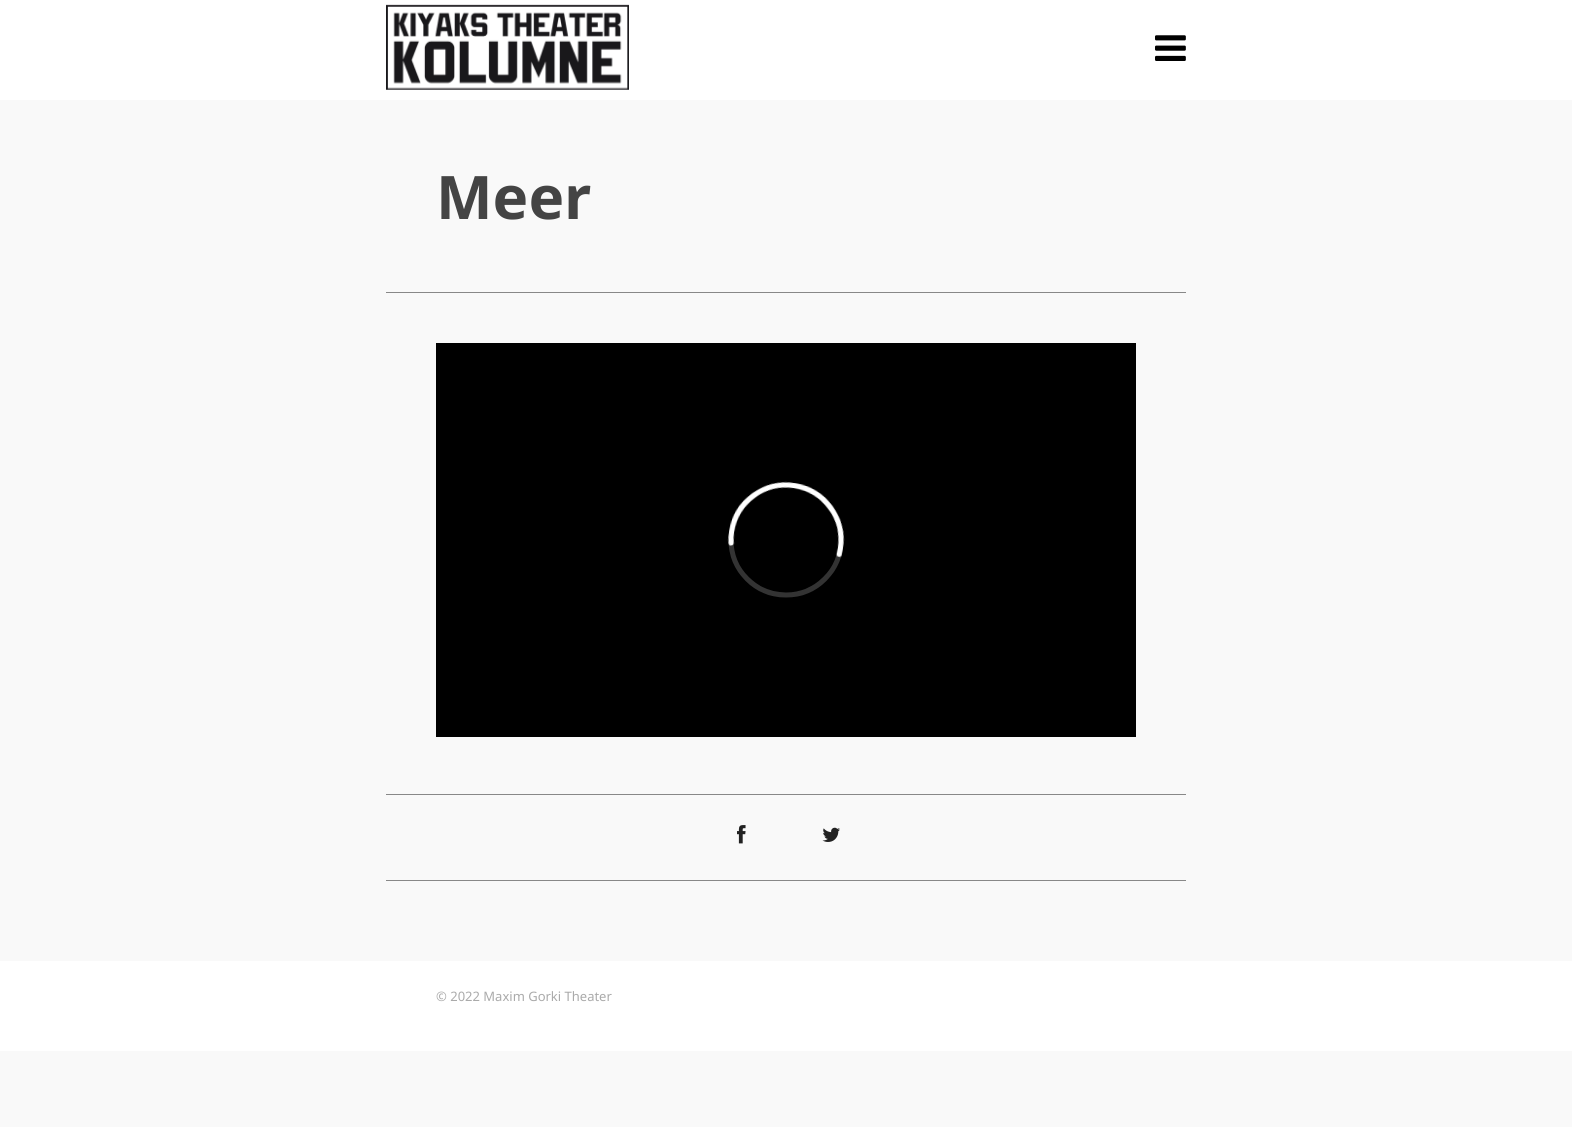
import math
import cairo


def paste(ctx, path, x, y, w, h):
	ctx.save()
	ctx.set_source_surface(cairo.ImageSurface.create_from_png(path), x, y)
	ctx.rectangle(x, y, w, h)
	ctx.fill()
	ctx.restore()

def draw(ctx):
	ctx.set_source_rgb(0.973, 0.973, 0.973)
	ctx.paint()
	ctx.set_source_rgb(1, 1, 1)
	ctx.rectangle(0, 0, 1572, 100)
	ctx.fill()
	paste(ctx, 'media/1.png', 386, 4, 243, 86)
	paste(ctx, 'media/2.png', 1155, 35, 31, 26)
	ctx.set_source_rgb(0.533, 0.533, 0.533)
	ctx.rectangle(386, 292, 800, 1)
	ctx.fill()
	ctx.select_font_face('Noto Sans', cairo.FONT_SLANT_NORMAL, cairo.FONT_WEIGHT_BOLD)
	ctx.set_font_size(60)
	ctx.set_source_rgb(0.267, 0.267, 0.267)
	ctx.move_to(436, 219)
	ctx.show_text('Meer')
	ctx.set_source_rgb(0.533, 0.533, 0.533)
	ctx.rectangle(386, 794, 800, 1)
	ctx.fill()
	paste(ctx, 'media/3.png', 436, 343, 700, 394)
	ctx.rectangle(386, 880, 800, 1)
	ctx.fill()
	paste(ctx, 'media/4.png', 737, 825, 9, 19)
	paste(ctx, 'media/5.png', 822, 827, 18, 15)
	ctx.set_source_rgb(1, 1, 1)
	ctx.rectangle(0, 961, 1572, 90)
	ctx.fill()
	ctx.select_font_face('Noto Sans')
	ctx.set_font_size(13)
	ctx.set_source_rgb(0.667, 0.667, 0.667)
	ctx.move_to(436, 1001)
	ctx.show_text('© 2022 Maxim Gorki Theater')


surface = cairo.ImageSurface(cairo.FORMAT_RGB24, 1572, 1127)
ctx = cairo.Context(surface)
options = cairo.FontOptions()
options.set_hint_metrics(cairo.HINT_METRICS_OFF)
options.set_hint_style(cairo.HINT_STYLE_NONE)
ctx.set_font_options(options)
ctx.set_miter_limit(4)
draw(ctx)
surface.write_to_png('image.png')
